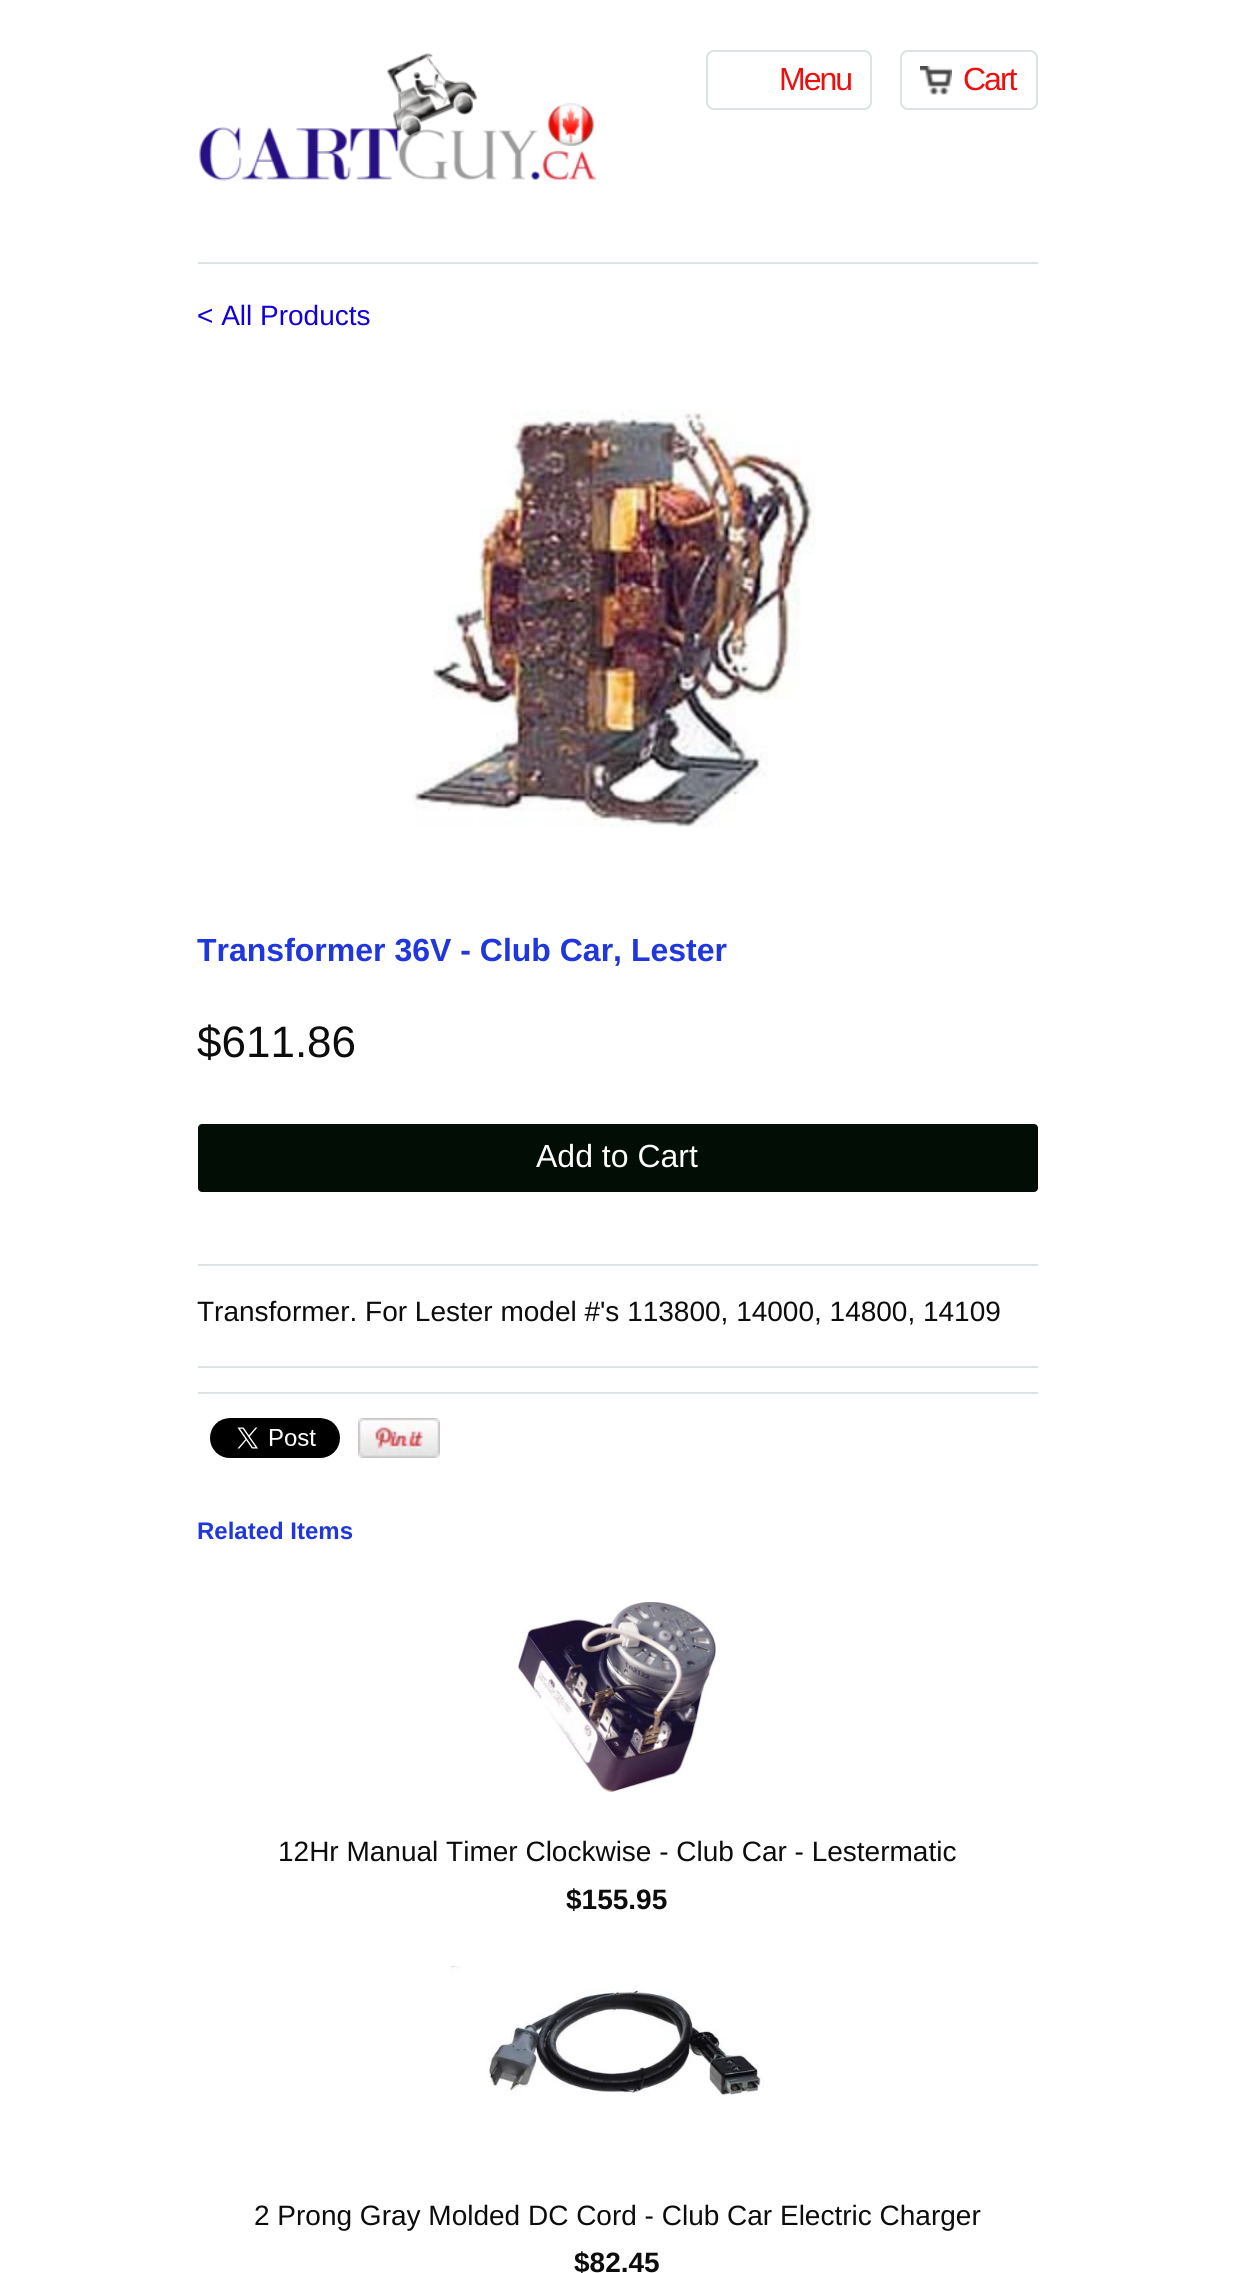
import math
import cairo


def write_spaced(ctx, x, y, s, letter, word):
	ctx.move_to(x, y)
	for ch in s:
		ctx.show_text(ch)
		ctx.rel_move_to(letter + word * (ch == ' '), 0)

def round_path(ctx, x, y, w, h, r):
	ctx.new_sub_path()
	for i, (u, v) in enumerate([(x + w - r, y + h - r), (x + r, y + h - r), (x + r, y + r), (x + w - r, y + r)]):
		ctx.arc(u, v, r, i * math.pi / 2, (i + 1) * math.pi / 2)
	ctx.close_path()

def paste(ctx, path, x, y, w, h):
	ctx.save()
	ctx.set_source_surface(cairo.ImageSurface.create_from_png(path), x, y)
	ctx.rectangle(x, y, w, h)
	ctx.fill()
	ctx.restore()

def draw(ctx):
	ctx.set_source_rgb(1, 1, 1)
	ctx.paint()
	ctx.set_source_rgb(0.859, 0.89, 0.898)
	ctx.rectangle(198, 262, 840, 2)
	ctx.fill()
	paste(ctx, 'media/1.png', 199, 53, 397, 128)
	round_path(ctx, 707, 51, 164, 58, 7)
	ctx.stroke()
	ctx.select_font_face('Liberation Sans')
	ctx.set_font_size(32)
	ctx.set_source_rgb(0.933, 0.055, 0.055)
	write_spaced(ctx, 779, 90, 'Menu', -2, 0)
	paste(ctx, 'media/2.png', 920, 66, 32, 29)
	round_path(ctx, 901, 51, 136, 58, 7)
	ctx.set_source_rgb(0.859, 0.89, 0.898)
	ctx.stroke()
	ctx.set_source_rgb(0.933, 0.055, 0.055)
	write_spaced(ctx, 963, 90, 'Cart', -2, 0)
	ctx.set_font_size(28)
	ctx.set_source_rgb(0.071, 0, 0.847)
	ctx.move_to(197, 325)
	ctx.show_text('< All Products')
	paste(ctx, 'media/3.png', 412, 409, 404, 418)
	ctx.select_font_face('Liberation Sans', cairo.FONT_SLANT_NORMAL, cairo.FONT_WEIGHT_BOLD)
	ctx.set_font_size(32)
	ctx.set_source_rgb(0.129, 0.216, 0.871)
	ctx.move_to(197, 961)
	ctx.show_text('Transformer 36V - Club Car, Lester')
	ctx.select_font_face('Liberation Sans')
	ctx.set_font_size(44)
	ctx.set_source_rgb(0.051, 0.047, 0.047)
	ctx.move_to(197, 1057)
	ctx.show_text('$611.86')
	ctx.set_source_rgb(0.004, 0.051, 0.02)
	round_path(ctx, 198, 1124, 840, 68, 4)
	ctx.fill()
	ctx.set_font_size(32)
	ctx.set_source_rgb(1, 1, 1)
	ctx.move_to(536, 1167)
	ctx.show_text('Add to Cart')
	ctx.set_source_rgb(0.859, 0.89, 0.898)
	ctx.rectangle(198, 1264, 840, 2)
	ctx.fill()
	ctx.set_font_size(28)
	ctx.set_source_rgb(0.051, 0.047, 0.047)
	ctx.move_to(197, 1321)
	ctx.show_text('Transformer. For Lester model #\'s 113800, 14000, 14800, 14109')
	ctx.set_source_rgb(0.859, 0.89, 0.898)
	ctx.rectangle(198, 1366, 840, 2)
	ctx.fill()
	ctx.rectangle(198, 1392, 840, 2)
	ctx.fill()
	paste(ctx, 'media/4.png', 210, 1418, 130, 40)
	paste(ctx, 'media/5.png', 358, 1418, 82, 40)
	ctx.select_font_face('Liberation Sans', cairo.FONT_SLANT_NORMAL, cairo.FONT_WEIGHT_BOLD)
	ctx.set_font_size(24)
	ctx.set_source_rgb(0.129, 0.216, 0.871)
	ctx.move_to(197, 1539)
	ctx.show_text('Related Items')
	paste(ctx, 'media/6.png', 518, 1602, 198, 190)
	ctx.select_font_face('Liberation Sans')
	ctx.set_font_size(28)
	ctx.set_source_rgb(0.051, 0.047, 0.047)
	ctx.move_to(278, 1861)
	ctx.show_text('12Hr Manual Timer Clockwise - Club Car - Lestermatic')
	ctx.select_font_face('Liberation Sans', cairo.FONT_SLANT_NORMAL, cairo.FONT_WEIGHT_BOLD)
	ctx.move_to(566, 1909)
	ctx.show_text('$155.95')
	paste(ctx, 'media/7.png', 450, 1966, 314, 131)
	ctx.select_font_face('Liberation Sans')
	ctx.move_to(254, 2225)
	ctx.show_text('2 Prong Gray Molded DC Cord - Club Car Electric Charger')
	ctx.select_font_face('Liberation Sans', cairo.FONT_SLANT_NORMAL, cairo.FONT_WEIGHT_BOLD)
	ctx.move_to(574, 2272)
	ctx.show_text('$82.45')


surface = cairo.ImageSurface(cairo.FORMAT_RGB24, 1234, 2273)
ctx = cairo.Context(surface)
options = cairo.FontOptions()
options.set_hint_metrics(cairo.HINT_METRICS_OFF)
options.set_hint_style(cairo.HINT_STYLE_NONE)
ctx.set_font_options(options)
ctx.set_miter_limit(4)
draw(ctx)
surface.write_to_png('image.png')
